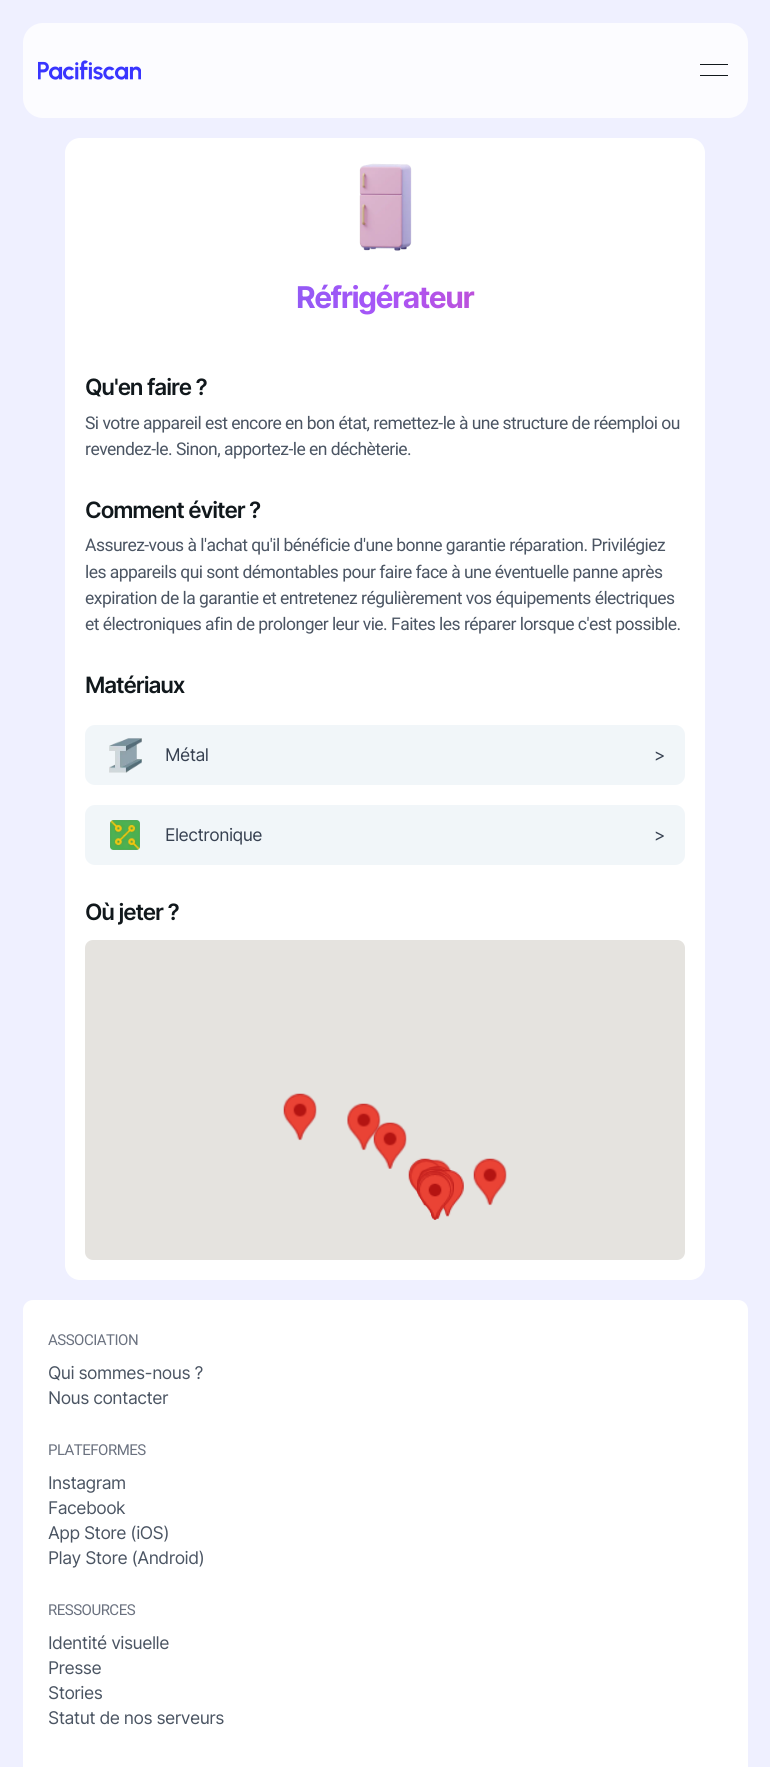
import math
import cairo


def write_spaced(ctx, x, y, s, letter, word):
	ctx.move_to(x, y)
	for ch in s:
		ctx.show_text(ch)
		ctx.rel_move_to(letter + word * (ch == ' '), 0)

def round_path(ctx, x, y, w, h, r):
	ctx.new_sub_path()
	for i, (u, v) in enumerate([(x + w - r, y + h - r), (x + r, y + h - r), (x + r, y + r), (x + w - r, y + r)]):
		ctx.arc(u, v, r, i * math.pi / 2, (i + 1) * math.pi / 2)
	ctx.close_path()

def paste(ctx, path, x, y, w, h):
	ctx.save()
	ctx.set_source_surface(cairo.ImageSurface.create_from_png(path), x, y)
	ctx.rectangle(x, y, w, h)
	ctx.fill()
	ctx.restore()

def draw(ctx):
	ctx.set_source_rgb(0.937, 0.941, 1)
	ctx.paint()
	ctx.set_source_rgb(0.988, 0.988, 1)
	round_path(ctx, 23, 23, 725, 95, 20)
	ctx.fill()
	paste(ctx, 'media/1.png', 38, 60, 103, 20)
	ctx.set_source_rgb(0.067, 0.094, 0.11)
	ctx.rectangle(700, 64, 28, 1)
	ctx.fill()
	ctx.rectangle(700, 75, 28, 1)
	ctx.fill()
	ctx.set_source_rgb(1, 1, 1)
	round_path(ctx, 65, 138, 640, 1142, 15)
	ctx.fill()
	paste(ctx, 'media/2.png', 359, 163, 53, 88)
	ctx.select_font_face('Inter', cairo.FONT_SLANT_NORMAL, cairo.FONT_WEIGHT_BOLD)
	ctx.set_font_size(30)
	gradient = cairo.LinearGradient(85, 298, 685, 297)
	gradient.add_color_stop_rgba(0, 0.388, 0.4, 0.945, 1)
	gradient.add_color_stop_rgba(0.5, 0.659, 0.333, 0.969, 1)
	gradient.add_color_stop_rgba(1, 0.925, 0.282, 0.6, 1)
	ctx.set_source(gradient)
	write_spaced(ctx, 296, 308, 'Réfrigérateur', -1.5, 0)
	ctx.select_font_face('Inter SemiBold')
	ctx.set_font_size(22.5)
	ctx.set_source_rgb(0.067, 0.094, 0.11)
	write_spaced(ctx, 85, 395, 'Qu\'en faire ?', -1.1, 0)
	ctx.select_font_face('Roboto')
	ctx.set_font_size(17.5)
	ctx.set_source_rgb(0.294, 0.333, 0.388)
	write_spaced(ctx, 85, 429, 'Si votre appareil est encore en bon état, remettez-le à une structure de réemploi ou', -0.53, 0)
	write_spaced(ctx, 85, 455, 'revendez-le. Sinon, apportez-le en déchèterie.', -0.53, 0)
	ctx.select_font_face('Inter SemiBold')
	ctx.set_font_size(22.5)
	ctx.set_source_rgb(0.067, 0.094, 0.11)
	write_spaced(ctx, 85, 518, 'Comment éviter ?', -1.1, 0)
	ctx.select_font_face('Roboto')
	ctx.set_font_size(17.5)
	ctx.set_source_rgb(0.294, 0.333, 0.388)
	for x, y, s in [
		(85, 551, 'Assurez-vous à l\'achat qu\'il bénéficie d\'une bonne garantie réparation. Privilégiez'),
		(85, 578, 'les appareils qui sont démontables pour faire face à une éventuelle panne après'),
		(85, 604, 'expiration de la garantie et entretenez régulièrement vos équipements électriques'),
		(85, 630, 'et électroniques afin de prolonger leur vie. Faites les réparer lorsque c\'est possible.'),
	]:
		write_spaced(ctx, x, y, s, -0.53, 0)
	ctx.select_font_face('Inter SemiBold')
	ctx.set_font_size(22.5)
	ctx.set_source_rgb(0.067, 0.094, 0.11)
	write_spaced(ctx, 85, 693, 'Matériaux', -1.1, 0)
	ctx.set_source_rgb(0.945, 0.961, 0.976)
	round_path(ctx, 85, 725, 600, 60, 10)
	ctx.fill()
	paste(ctx, 'media/3.png', 109, 738, 33, 35)
	ctx.select_font_face('Inter')
	ctx.set_font_size(17.5)
	ctx.set_source_rgb(0.216, 0.255, 0.318)
	write_spaced(ctx, 165, 761, 'Métal', -0.53, 0)
	write_spaced(ctx, 654, 761, '>', -0.53, 0)
	ctx.set_source_rgb(0.945, 0.961, 0.976)
	round_path(ctx, 85, 805, 600, 60, 10)
	ctx.fill()
	paste(ctx, 'media/4.png', 110, 820, 30, 30)
	ctx.set_source_rgb(0.216, 0.255, 0.318)
	write_spaced(ctx, 165, 841, 'Electronique', -0.53, 0)
	write_spaced(ctx, 654, 841, '>', -0.53, 0)
	ctx.select_font_face('Inter SemiBold')
	ctx.set_font_size(22.5)
	ctx.set_source_rgb(0.067, 0.094, 0.11)
	write_spaced(ctx, 85, 920, 'Où jeter ?', -1.1, 0)
	ctx.set_source_rgb(0.898, 0.89, 0.875)
	round_path(ctx, 85, 940, 600, 320, 8)
	ctx.fill()
	paste(ctx, 'media/5.png', 283, 1093, 34, 48)
	paste(ctx, 'media/6.png', 347, 1103, 34, 48)
	paste(ctx, 'media/7.png', 373, 1122, 34, 47)
	paste(ctx, 'media/8.png', 408, 1158, 28, 47)
	paste(ctx, 'media/9.png', 473, 1158, 34, 48)
	paste(ctx, 'media/11.png', 425, 1159, 27, 13)
	paste(ctx, 'media/10.png', 409, 1159, 33, 48)
	paste(ctx, 'media/12.png', 422, 1166, 29, 46)
	paste(ctx, 'media/14.png', 418, 1167, 30, 23)
	paste(ctx, 'media/13.png', 417, 1167, 29, 47)
	paste(ctx, 'media/17.png', 420, 1169, 27, 10)
	paste(ctx, 'media/15.png', 417, 1169, 27, 46)
	paste(ctx, 'media/16.png', 417, 1169, 27, 46)
	paste(ctx, 'media/20.png', 438, 1170, 26, 47)
	paste(ctx, 'media/18.png', 422, 1170, 32, 47)
	paste(ctx, 'media/19.png', 417, 1171, 32, 47)
	paste(ctx, 'media/21.png', 417, 1171, 32, 47)
	paste(ctx, 'media/22.png', 417, 1172, 32, 46)
	paste(ctx, 'media/27.png', 417, 1191, 17, 27)
	paste(ctx, 'media/24.png', 420, 1172, 33, 47)
	paste(ctx, 'media/25.png', 425, 1173, 29, 46)
	paste(ctx, 'media/23.png', 417, 1172, 33, 47)
	paste(ctx, 'media/26.png', 418, 1174, 34, 46)
	ctx.set_source_rgb(1, 1, 1)
	round_path(ctx, 23, 1300, 725, 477, 10)
	ctx.fill()
	ctx.select_font_face('Roboto')
	ctx.set_font_size(15)
	ctx.set_source_rgb(0.42, 0.447, 0.502)
	write_spaced(ctx, 48, 1345, 'ASSOCIATION', -0.5, 0)
	ctx.select_font_face('Inter')
	ctx.set_font_size(17.5)
	ctx.set_source_rgb(0.294, 0.333, 0.388)
	write_spaced(ctx, 48, 1379, 'Qui sommes-nous ?', -0.53, 0)
	write_spaced(ctx, 48, 1404, 'Nous contacter', -0.53, 0)
	ctx.select_font_face('Roboto')
	ctx.set_font_size(15)
	ctx.set_source_rgb(0.42, 0.447, 0.502)
	write_spaced(ctx, 48, 1455, 'PLATEFORMES', -0.5, 0)
	ctx.select_font_face('Inter')
	ctx.set_font_size(17.5)
	ctx.set_source_rgb(0.294, 0.333, 0.388)
	for x, y, s in [
		(48, 1489, 'Instagram'),
		(48, 1514, 'Facebook'),
		(48, 1539, 'App Store (iOS)'),
		(48, 1564, 'Play Store (Android)'),
	]:
		write_spaced(ctx, x, y, s, -0.53, 0)
	ctx.select_font_face('Roboto')
	ctx.set_font_size(15)
	ctx.set_source_rgb(0.42, 0.447, 0.502)
	write_spaced(ctx, 48, 1615, 'RESSOURCES', -0.5, 0)
	ctx.select_font_face('Inter')
	ctx.set_font_size(17.5)
	ctx.set_source_rgb(0.294, 0.333, 0.388)
	for x, y, s in [
		(48, 1649, 'Identité visuelle'),
		(48, 1674, 'Presse'),
		(48, 1699, 'Stories'),
		(48, 1724, 'Statut de nos serveurs'),
	]:
		write_spaced(ctx, x, y, s, -0.53, 0)


surface = cairo.ImageSurface(cairo.FORMAT_RGB24, 770, 1767)
ctx = cairo.Context(surface)
options = cairo.FontOptions()
options.set_hint_metrics(cairo.HINT_METRICS_OFF)
options.set_hint_style(cairo.HINT_STYLE_NONE)
ctx.set_font_options(options)
ctx.set_miter_limit(4)
draw(ctx)
surface.write_to_png('image.png')
